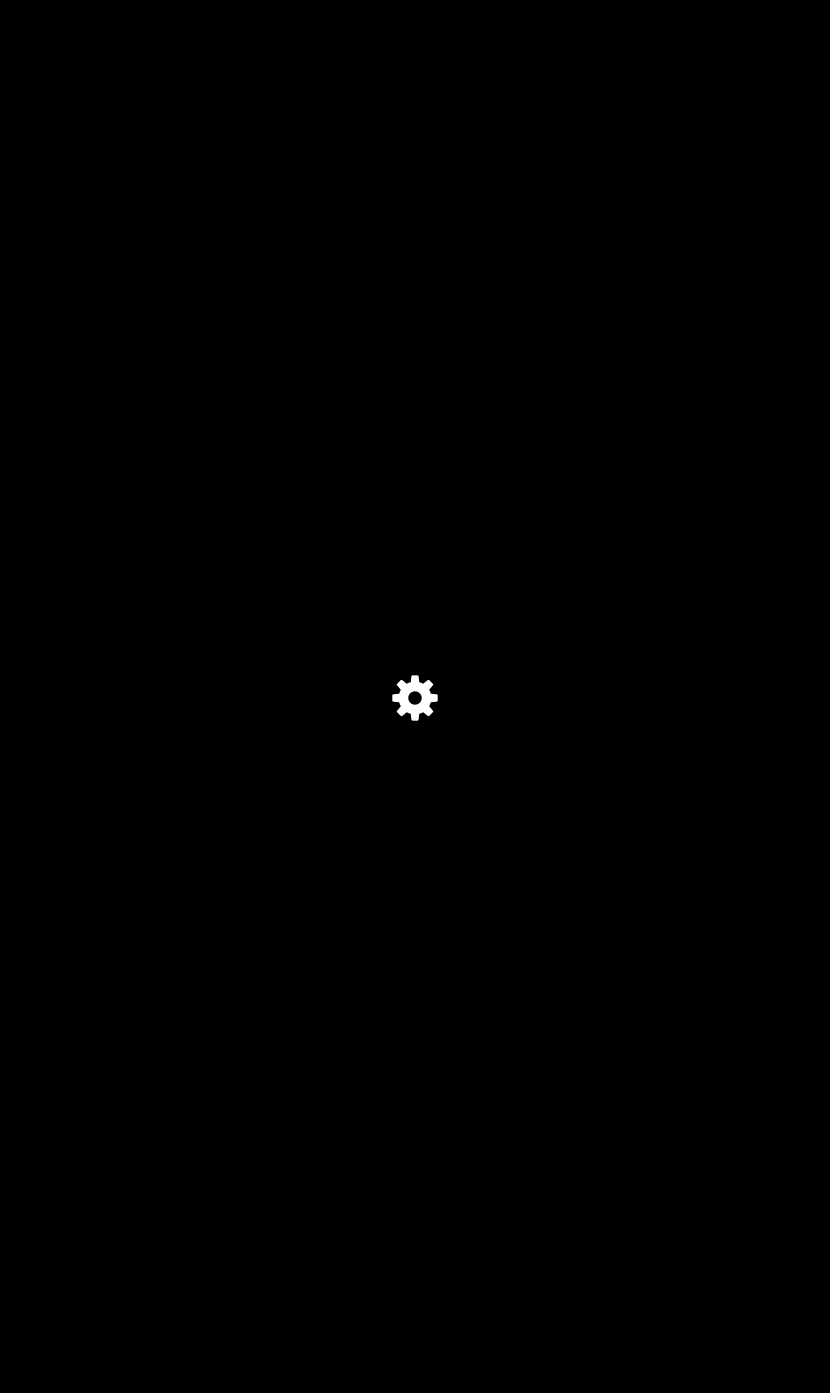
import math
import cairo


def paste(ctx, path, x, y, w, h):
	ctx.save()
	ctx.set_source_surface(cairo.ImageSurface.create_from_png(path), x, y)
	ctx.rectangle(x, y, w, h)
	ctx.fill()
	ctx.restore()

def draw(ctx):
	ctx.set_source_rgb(0, 0, 0)
	ctx.paint()
	paste(ctx, 'media/1.png', 392, 675, 46, 46)


surface = cairo.ImageSurface(cairo.FORMAT_RGB24, 830, 1393)
ctx = cairo.Context(surface)
options = cairo.FontOptions()
options.set_hint_metrics(cairo.HINT_METRICS_OFF)
options.set_hint_style(cairo.HINT_STYLE_NONE)
ctx.set_font_options(options)
ctx.set_miter_limit(4)
draw(ctx)
surface.write_to_png('image.png')
